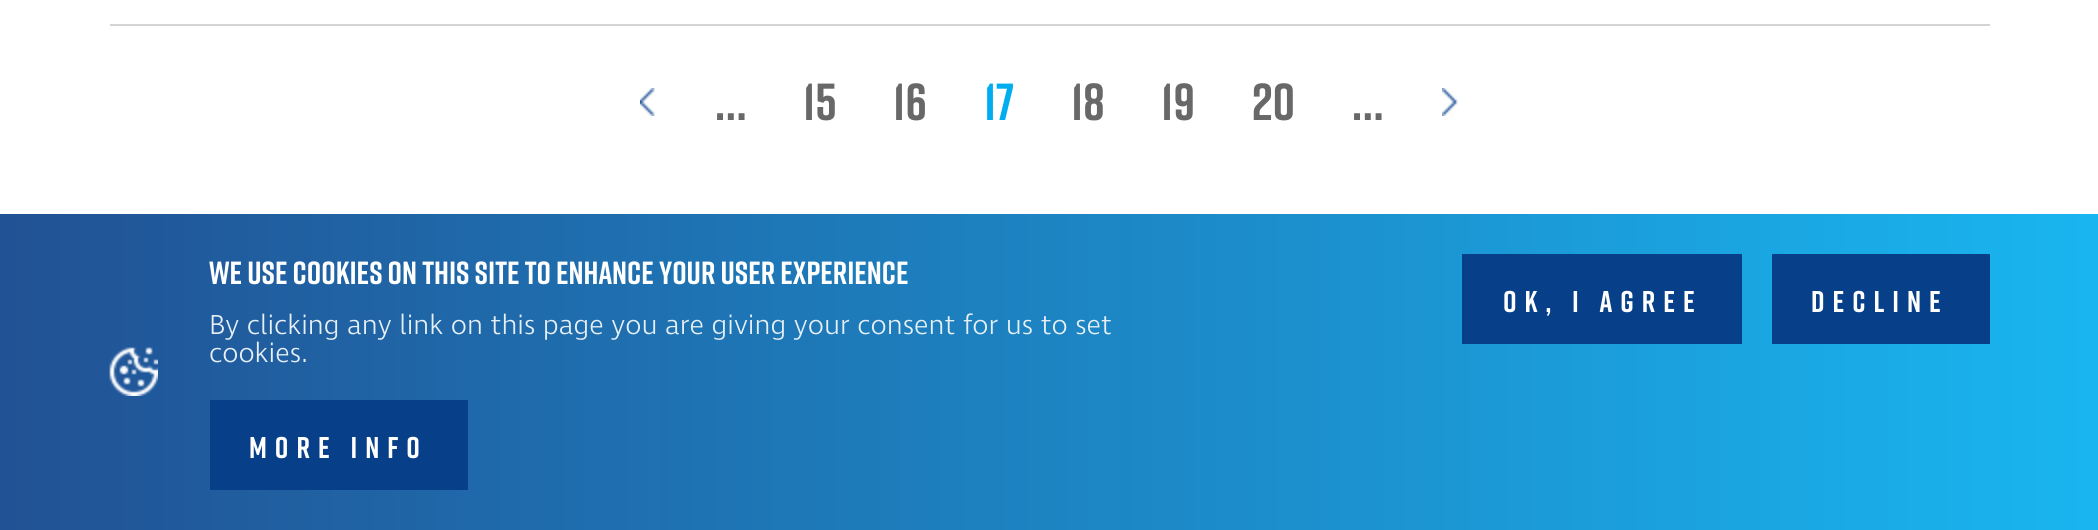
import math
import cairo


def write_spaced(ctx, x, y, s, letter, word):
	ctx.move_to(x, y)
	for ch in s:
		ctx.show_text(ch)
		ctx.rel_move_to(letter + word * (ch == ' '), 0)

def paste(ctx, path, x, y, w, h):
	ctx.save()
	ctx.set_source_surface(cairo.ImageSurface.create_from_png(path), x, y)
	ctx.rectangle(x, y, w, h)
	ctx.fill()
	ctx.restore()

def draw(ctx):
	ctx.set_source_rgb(1, 1, 1)
	ctx.paint()
	ctx.set_source_rgb(0.831, 0.831, 0.831)
	ctx.rectangle(110, 24, 1880, 2)
	ctx.fill()
	paste(ctx, 'media/1.png', 640, 88, 15, 28)
	ctx.select_font_face('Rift', cairo.FONT_SLANT_NORMAL, cairo.FONT_WEIGHT_BOLD)
	ctx.set_font_size(52)
	ctx.set_source_rgb(0.408, 0.408, 0.408)
	for x, y, s in [
		(715, 120, '…'),
		(803, 120, '15'),
		(893, 120, '16'),
	]:
		ctx.move_to(x, y)
		ctx.show_text(s)
	ctx.set_source_rgb(0, 0.682, 0.937)
	ctx.move_to(984, 120)
	ctx.show_text('17')
	ctx.set_source_rgb(0.408, 0.408, 0.408)
	for x, y, s in [
		(1071, 120, '18'),
		(1161, 120, '19'),
		(1252, 120, '20'),
		(1352, 120, '…'),
	]:
		ctx.move_to(x, y)
		ctx.show_text(s)
	paste(ctx, 'media/2.png', 1442, 88, 16, 28)
	gradient = cairo.LinearGradient(0, 372, 2098, 372)
	gradient.add_color_stop_rgba(0, 0.035, 0.247, 0.537, 0.9)
	gradient.add_color_stop_rgba(1, 0, 0.682, 0.937, 0.9)
	ctx.set_source(gradient)
	ctx.rectangle(0, 214, 2098, 316)
	ctx.fill()
	ctx.set_font_size(32)
	ctx.set_source_rgb(1, 1, 1)
	ctx.move_to(209, 284)
	ctx.show_text('We use cookies on this site to enhance your user experience')
	ctx.select_font_face('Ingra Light')
	ctx.set_font_size(28)
	ctx.set_source_rgb(0.91, 0.941, 0.965)
	ctx.move_to(209, 334)
	ctx.show_text('By clicking any link on this page you are giving your consent for us to set')
	ctx.move_to(209, 362)
	ctx.show_text('cookies.')
	paste(ctx, 'media/3.png', 109, 347, 49, 49)
	ctx.set_source_rgb(0.035, 0.247, 0.537)
	ctx.rectangle(210, 400, 258, 90)
	ctx.fill()
	ctx.select_font_face('Rift', cairo.FONT_SLANT_NORMAL, cairo.FONT_WEIGHT_BOLD)
	ctx.set_font_size(30)
	ctx.set_source_rgb(1, 1, 1)
	write_spaced(ctx, 249, 458, 'MORE INFO', 8, 0)
	ctx.set_source_rgb(0.035, 0.247, 0.537)
	ctx.rectangle(1462, 254, 280, 90)
	ctx.fill()
	ctx.set_source_rgb(1, 1, 1)
	write_spaced(ctx, 1503, 312, 'OK, I AGREE', 8, 0)
	ctx.set_source_rgb(0.035, 0.247, 0.537)
	ctx.rectangle(1772, 254, 218, 90)
	ctx.fill()
	ctx.set_source_rgb(1, 1, 1)
	write_spaced(ctx, 1811, 312, 'DECLINE', 8, 0)


surface = cairo.ImageSurface(cairo.FORMAT_RGB24, 2098, 530)
ctx = cairo.Context(surface)
options = cairo.FontOptions()
options.set_hint_metrics(cairo.HINT_METRICS_OFF)
options.set_hint_style(cairo.HINT_STYLE_NONE)
ctx.set_font_options(options)
ctx.set_miter_limit(4)
draw(ctx)
surface.write_to_png('image.png')
